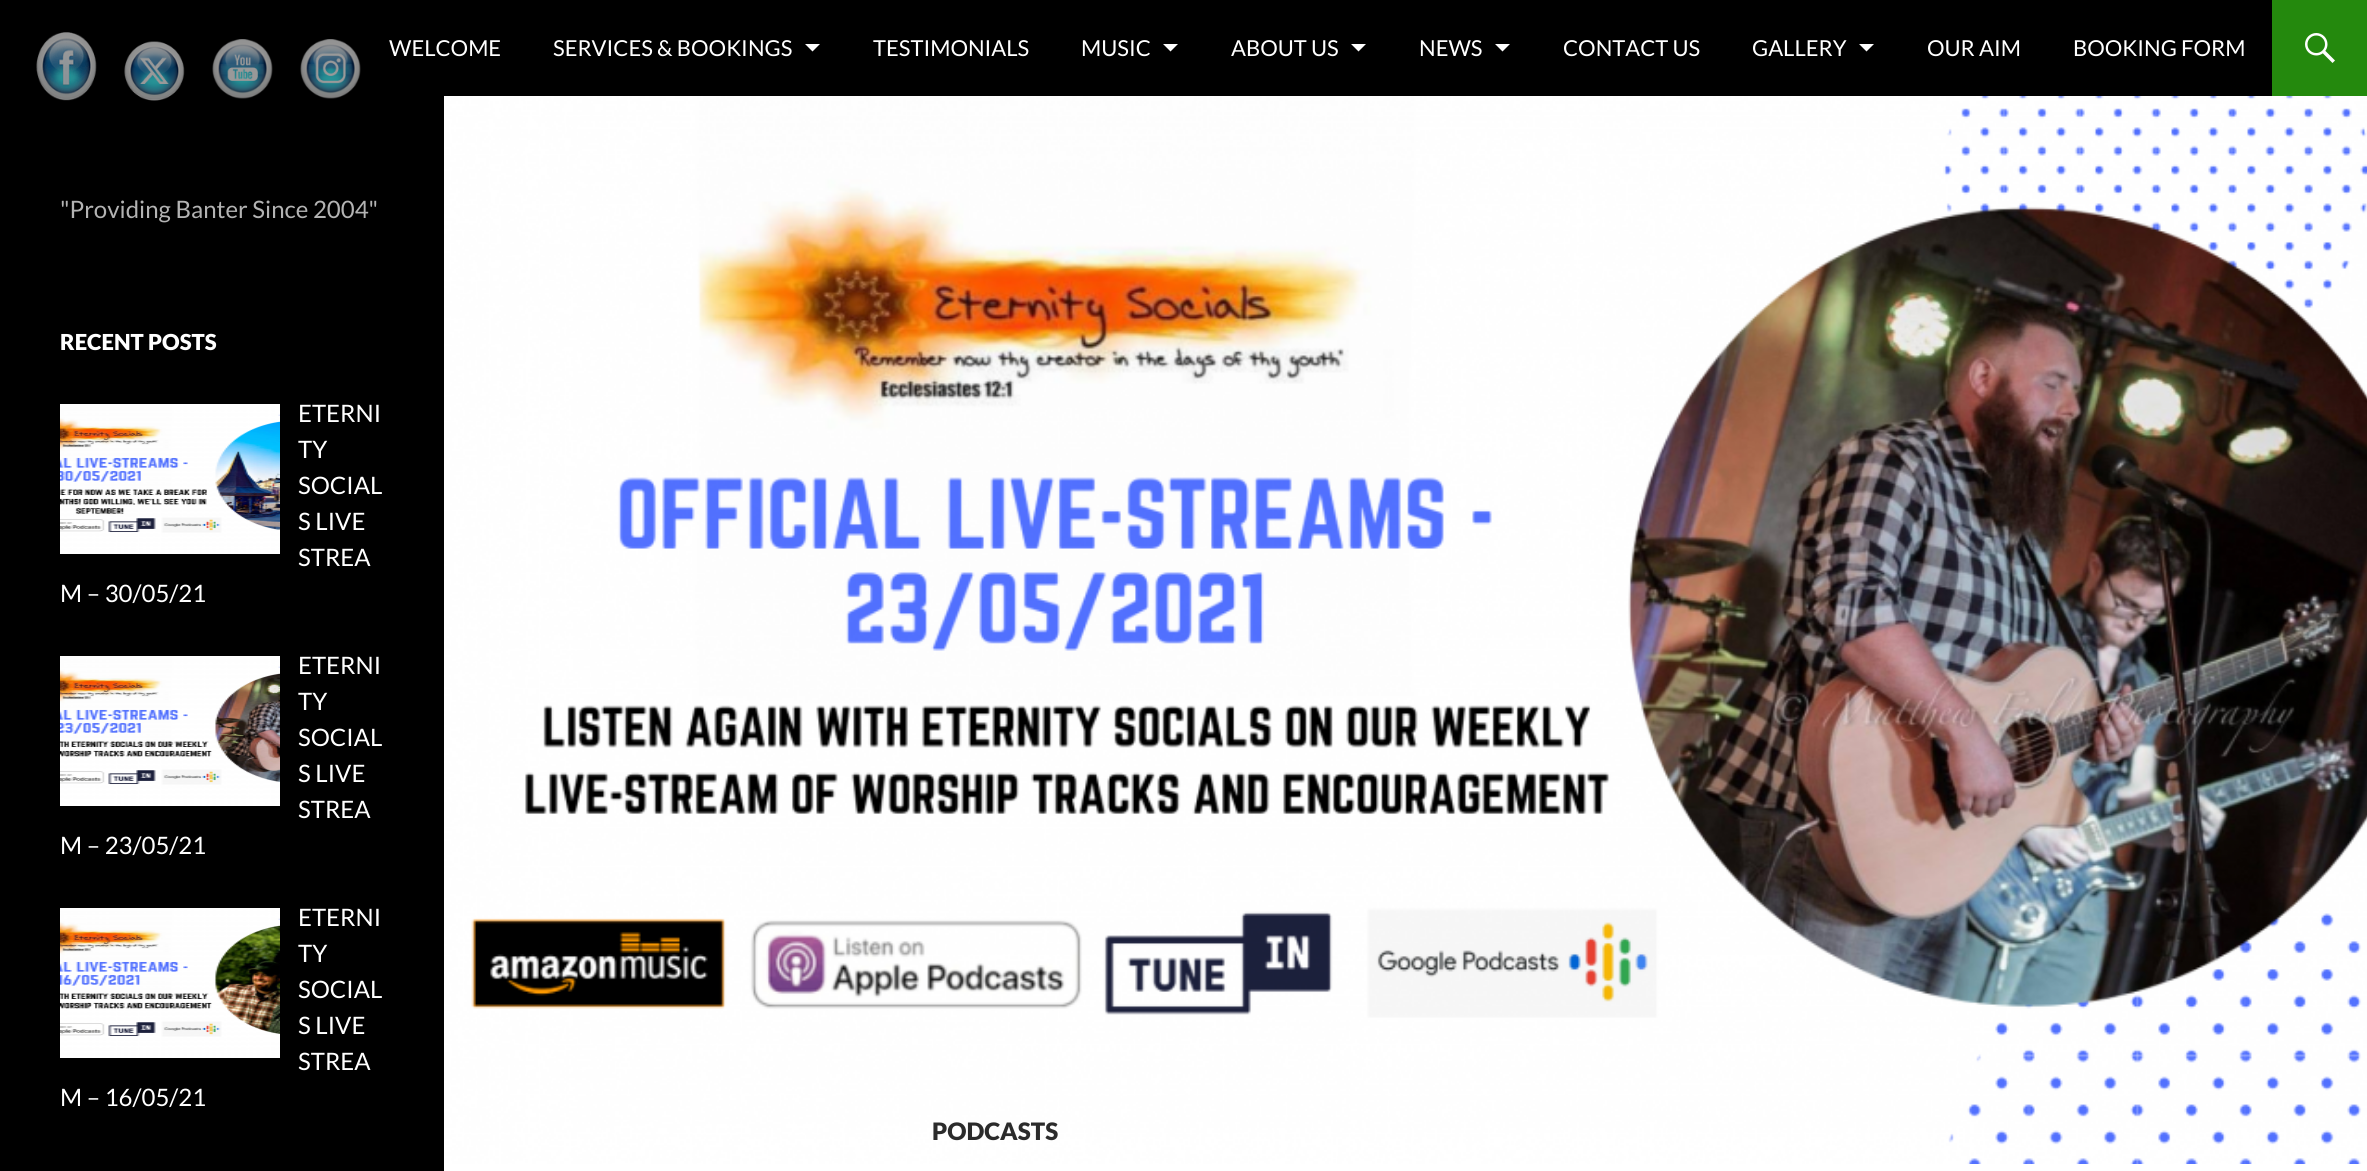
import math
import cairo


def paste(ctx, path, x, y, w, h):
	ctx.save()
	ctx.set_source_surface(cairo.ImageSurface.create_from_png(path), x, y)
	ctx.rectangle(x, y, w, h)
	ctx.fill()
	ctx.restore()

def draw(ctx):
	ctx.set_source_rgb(0, 0, 0)
	ctx.paint()
	paste(ctx, 'media/1.png', 36, 32, 61, 69)
	paste(ctx, 'media/2.png', 124, 41, 61, 60)
	paste(ctx, 'media/3.png', 212, 39, 61, 60)
	paste(ctx, 'media/4.png', 300, 39, 61, 60)
	ctx.set_source_rgb(1, 1, 1)
	ctx.rectangle(444, 1164, 1923, 7)
	ctx.fill()
	ctx.select_font_face('Lato')
	ctx.set_font_size(22)
	ctx.move_to(389, 56)
	ctx.show_text('WELCOME')
	ctx.move_to(553, 56)
	ctx.show_text('SERVICES & BOOKINGS')
	ctx.new_path()
	ctx.move_to(805, 44)
	ctx.line_to(812.5, 51.5)
	ctx.line_to(820, 44)
	ctx.close_path()
	ctx.fill()
	ctx.move_to(873, 56)
	ctx.show_text('TESTIMONIALS')
	ctx.move_to(1081, 56)
	ctx.show_text('MUSIC')
	ctx.new_path()
	ctx.move_to(1163, 44)
	ctx.line_to(1170.5, 51.5)
	ctx.line_to(1178, 44)
	ctx.close_path()
	ctx.fill()
	ctx.move_to(1231, 56)
	ctx.show_text('ABOUT US')
	ctx.new_path()
	ctx.move_to(1351, 44)
	ctx.line_to(1358.5, 51.5)
	ctx.line_to(1366, 44)
	ctx.close_path()
	ctx.fill()
	ctx.move_to(1419, 56)
	ctx.show_text('NEWS')
	ctx.new_path()
	ctx.move_to(1495, 44)
	ctx.line_to(1502.5, 51.5)
	ctx.line_to(1510, 44)
	ctx.close_path()
	ctx.fill()
	ctx.move_to(1563, 56)
	ctx.show_text('CONTACT US')
	ctx.move_to(1752, 56)
	ctx.show_text('GALLERY')
	ctx.new_path()
	ctx.move_to(1859, 44)
	ctx.line_to(1866.5, 51.5)
	ctx.line_to(1874, 44)
	ctx.close_path()
	ctx.fill()
	ctx.move_to(1927, 56)
	ctx.show_text('OUR AIM')
	ctx.move_to(2073, 56)
	ctx.show_text('BOOKING FORM')
	ctx.set_source_rgb(0.141, 0.537, 0.051)
	ctx.rectangle(2272, 0, 95, 96)
	ctx.fill()
	paste(ctx, 'media/5.png', 2305, 33, 30, 30)
	ctx.set_font_size(24)
	ctx.set_source_rgb(0.702, 0.702, 0.702)
	ctx.move_to(60, 218)
	ctx.show_text('"Providing Banter Since 2004"')
	ctx.select_font_face('Lato Black')
	ctx.set_font_size(22)
	ctx.set_source_rgb(1, 1, 1)
	ctx.move_to(60, 350)
	ctx.show_text('RECENT POSTS')
	paste(ctx, 'media/6.png', 60, 404, 220, 150)
	ctx.select_font_face('Lato')
	ctx.set_font_size(24)
	for x, y, s in [
		(298, 422, 'ETERNI'),
		(298, 458, 'TY'),
		(298, 494, 'SOCIAL'),
		(298, 530, 'S LIVE'),
		(298, 566, 'STREA'),
		(60, 602, 'M – 30/05/21'),
	]:
		ctx.move_to(x, y)
		ctx.show_text(s)
	paste(ctx, 'media/7.png', 60, 656, 220, 150)
	for x, y, s in [
		(298, 674, 'ETERNI'),
		(298, 710, 'TY'),
		(298, 746, 'SOCIAL'),
		(298, 782, 'S LIVE'),
		(298, 818, 'STREA'),
		(60, 854, 'M – 23/05/21'),
	]:
		ctx.move_to(x, y)
		ctx.show_text(s)
	paste(ctx, 'media/8.png', 60, 908, 220, 150)
	for x, y, s in [
		(298, 926, 'ETERNI'),
		(298, 962, 'TY'),
		(298, 998, 'SOCIAL'),
		(298, 1034, 'S LIVE'),
		(298, 1070, 'STREA'),
		(60, 1106, 'M – 16/05/21'),
	]:
		ctx.move_to(x, y)
		ctx.show_text(s)
	paste(ctx, 'media/9.png', 444, 96, 1923, 1068)
	ctx.select_font_face('Lato Black')
	ctx.set_source_rgb(0.169, 0.169, 0.169)
	ctx.move_to(932, 1140)
	ctx.show_text('PODCASTS')


surface = cairo.ImageSurface(cairo.FORMAT_RGB24, 2367, 1171)
ctx = cairo.Context(surface)
options = cairo.FontOptions()
options.set_hint_metrics(cairo.HINT_METRICS_OFF)
options.set_hint_style(cairo.HINT_STYLE_NONE)
ctx.set_font_options(options)
ctx.set_miter_limit(4)
draw(ctx)
surface.write_to_png('image.png')
